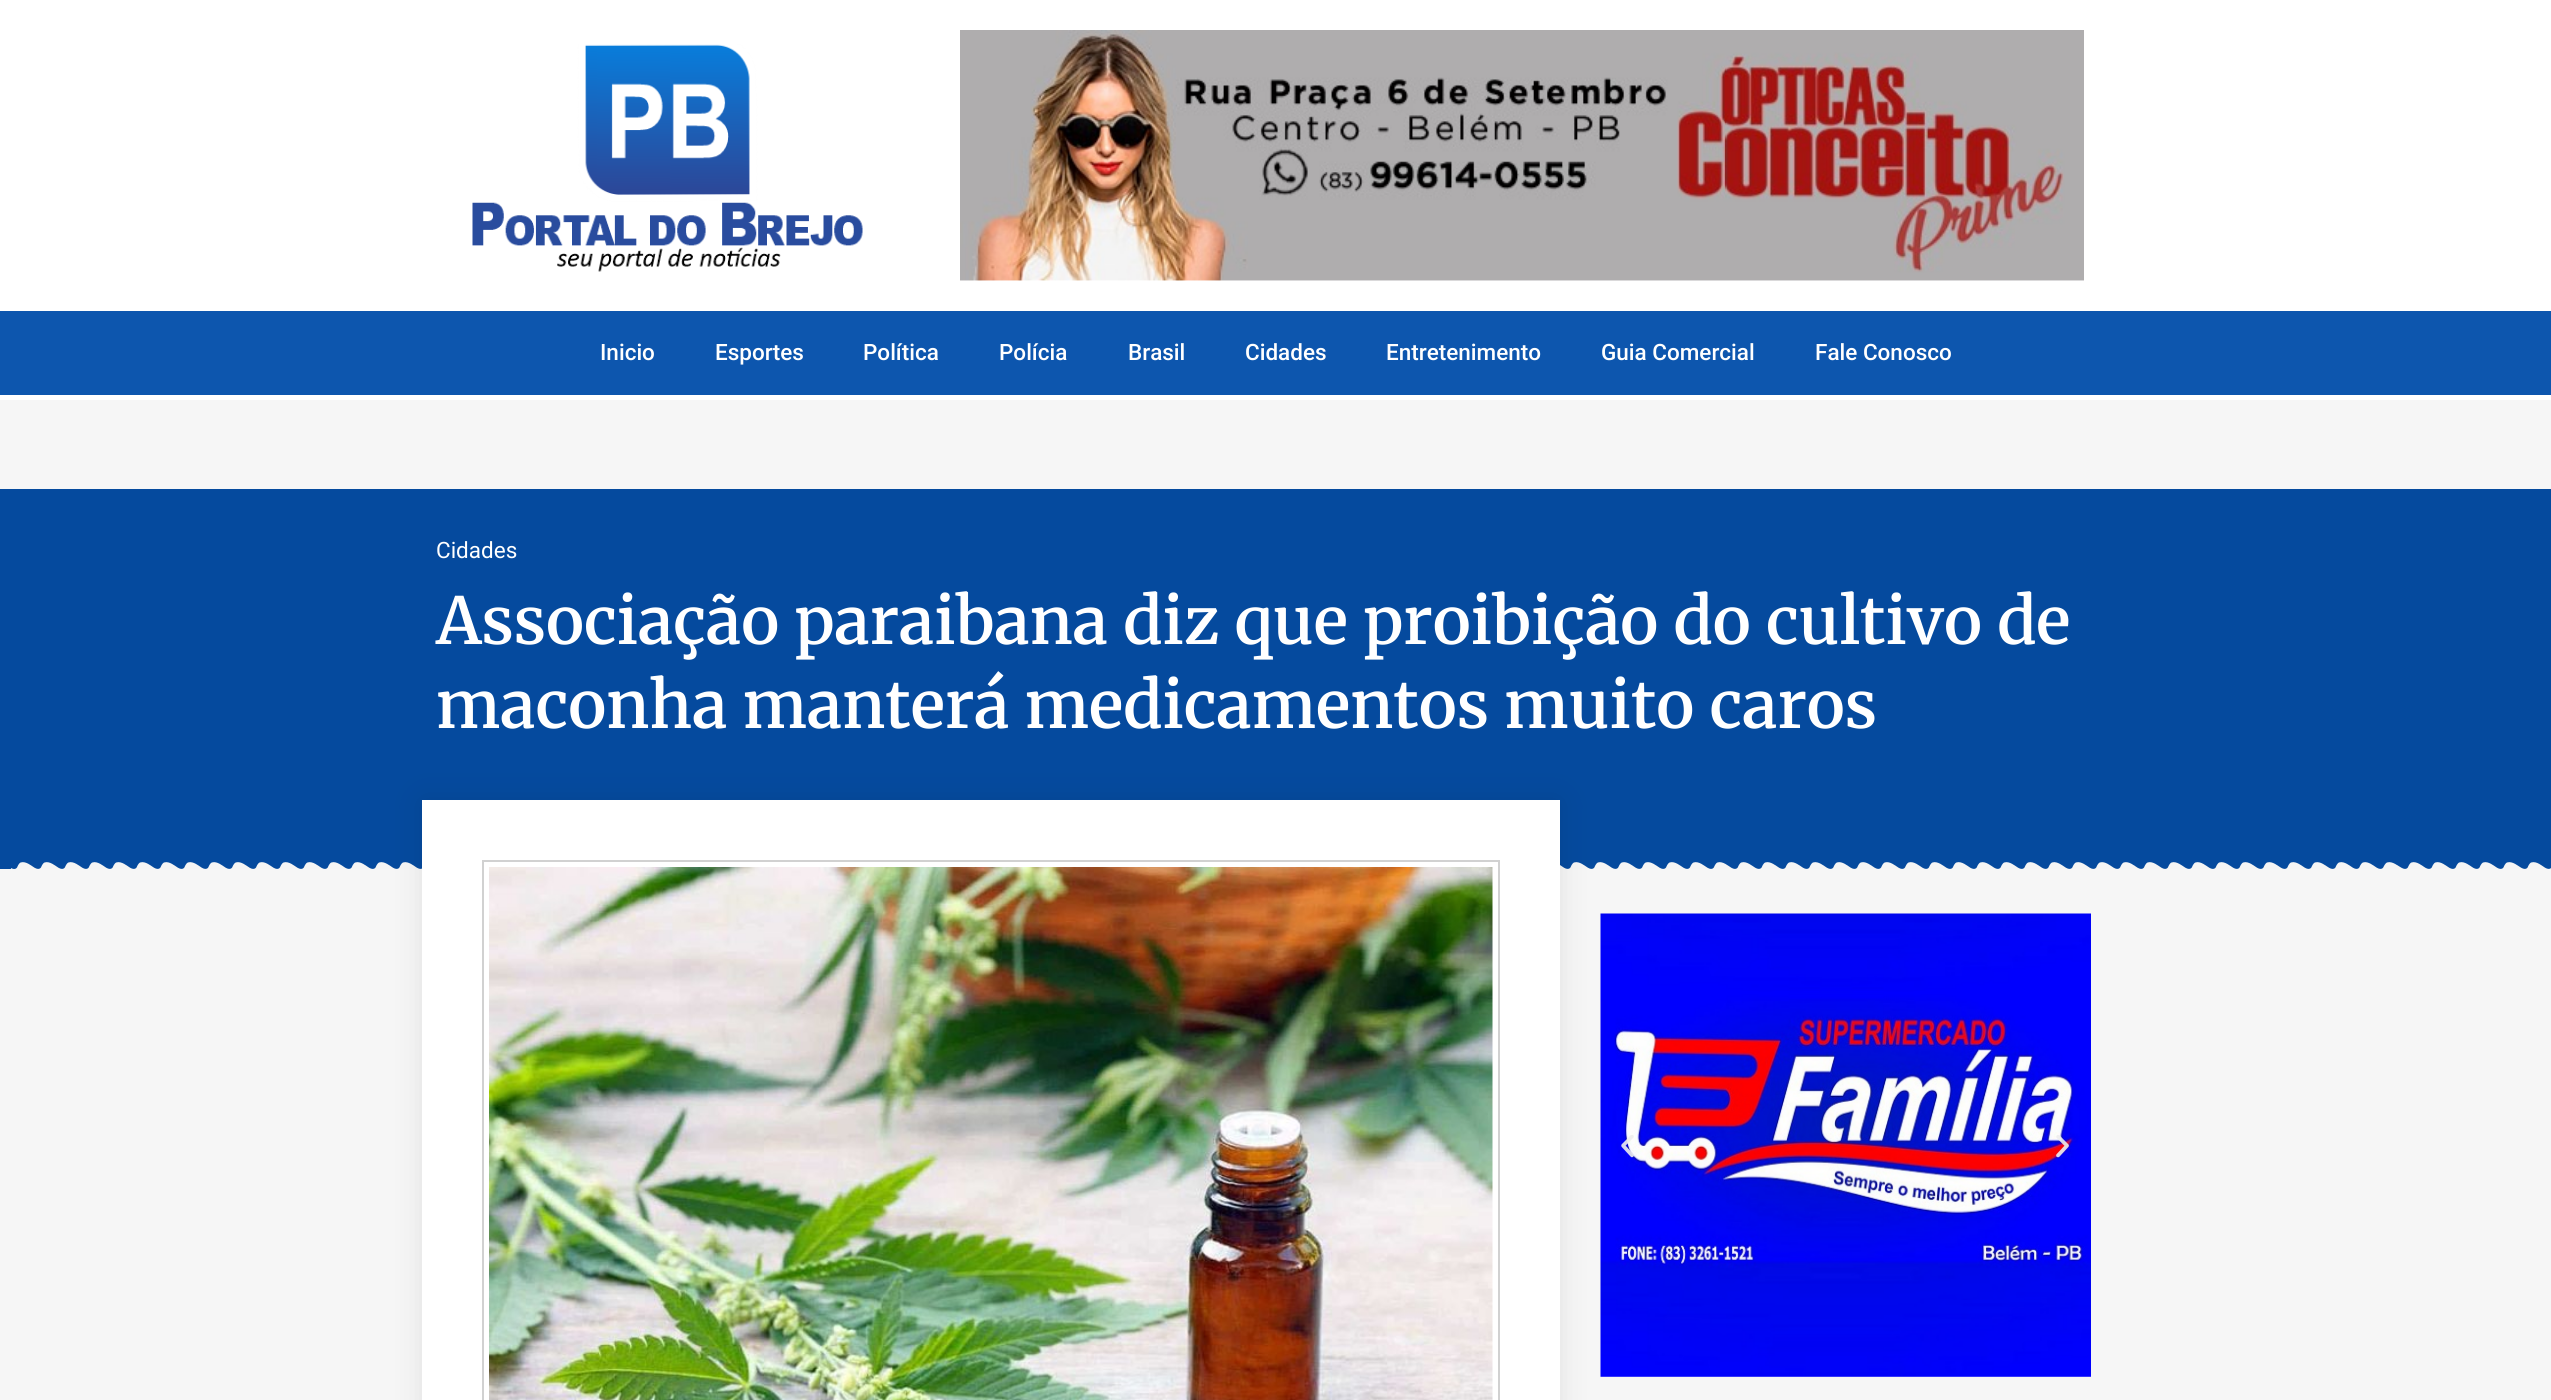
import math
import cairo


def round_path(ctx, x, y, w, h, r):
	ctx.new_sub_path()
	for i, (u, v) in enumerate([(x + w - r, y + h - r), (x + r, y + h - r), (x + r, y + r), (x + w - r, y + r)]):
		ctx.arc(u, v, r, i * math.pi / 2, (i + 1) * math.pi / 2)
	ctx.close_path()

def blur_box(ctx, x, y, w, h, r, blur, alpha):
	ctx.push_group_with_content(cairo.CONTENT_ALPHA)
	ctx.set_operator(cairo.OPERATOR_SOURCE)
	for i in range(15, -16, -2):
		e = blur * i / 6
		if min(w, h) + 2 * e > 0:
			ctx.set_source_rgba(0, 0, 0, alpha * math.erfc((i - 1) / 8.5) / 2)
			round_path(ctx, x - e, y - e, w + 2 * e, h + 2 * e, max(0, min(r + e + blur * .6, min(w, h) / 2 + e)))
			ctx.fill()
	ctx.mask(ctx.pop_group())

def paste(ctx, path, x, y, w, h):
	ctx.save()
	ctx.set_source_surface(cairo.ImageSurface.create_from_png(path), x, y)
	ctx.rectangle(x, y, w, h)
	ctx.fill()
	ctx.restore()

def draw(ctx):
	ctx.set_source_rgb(0.961, 0.961, 0.961)
	ctx.paint()
	ctx.set_source_rgb(1, 1, 1)
	ctx.rectangle(0, 0, 2551, 311)
	ctx.fill()
	paste(ctx, 'media/1.png', 472, 44, 391, 228)
	paste(ctx, 'media/2.png', 960, 30, 1124, 251)
	ctx.set_source_rgb(0.051, 0.337, 0.682)
	ctx.rectangle(0, 311, 2551, 84)
	ctx.fill()
	ctx.set_source_rgb(1, 1, 1)
	ctx.rectangle(0, 395, 2551, 5)
	ctx.fill()
	ctx.select_font_face('Roboto Medium')
	ctx.set_font_size(22.5)
	for x, y, s in [
		(600, 360, 'Inicio'),
		(715, 360, 'Esportes'),
		(863, 360, 'Política'),
		(999, 360, 'Polícia'),
		(1128, 360, 'Brasil'),
		(1245, 360, 'Cidades'),
		(1386, 360, 'Entretenimento'),
		(1601, 360, 'Guia Comercial'),
		(1815, 360, 'Fale Conosco'),
	]:
		ctx.move_to(x, y)
		ctx.show_text(s)
	ctx.set_source_rgb(0.02, 0.29, 0.62)
	ctx.rectangle(0, 489, 2551, 380)
	ctx.fill()
	ctx.select_font_face('Roboto')
	ctx.set_source_rgb(1, 1, 1)
	ctx.move_to(436, 558)
	ctx.show_text('Cidades')
	ctx.select_font_face('Merriweather SemiBold')
	ctx.set_font_size(64.5)
	ctx.move_to(436, 644)
	ctx.show_text('Associação paraibana diz que proibição do cultivo de')
	ctx.move_to(436, 728)
	ctx.show_text('maconha manterá medicamentos muito caros')
	paste(ctx, 'media/3.png', 10, 862, 2541, 7)
	ctx.set_source_rgb(0, 0, 0)
	blur_box(ctx, 422, 800, 1138, 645, 0, 15, 0.09)
	ctx.set_source_rgb(1, 1, 1)
	ctx.rectangle(422, 800, 1138, 600)
	ctx.fill()
	ctx.rectangle(483, 861, 1016, 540)
	ctx.set_source_rgb(0.82, 0.82, 0.82)
	ctx.stroke()
	paste(ctx, 'media/4.png', 489, 867, 1004, 533)
	paste(ctx, 'media/5.png', 1600, 913, 491, 464)
	paste(ctx, 'media/6.png', 1621, 1135, 13, 23)
	paste(ctx, 'media/7.png', 2056, 1135, 13, 23)


surface = cairo.ImageSurface(cairo.FORMAT_RGB24, 2551, 1400)
ctx = cairo.Context(surface)
options = cairo.FontOptions()
options.set_hint_metrics(cairo.HINT_METRICS_OFF)
options.set_hint_style(cairo.HINT_STYLE_NONE)
ctx.set_font_options(options)
ctx.set_miter_limit(4)
draw(ctx)
surface.write_to_png('image.png')
